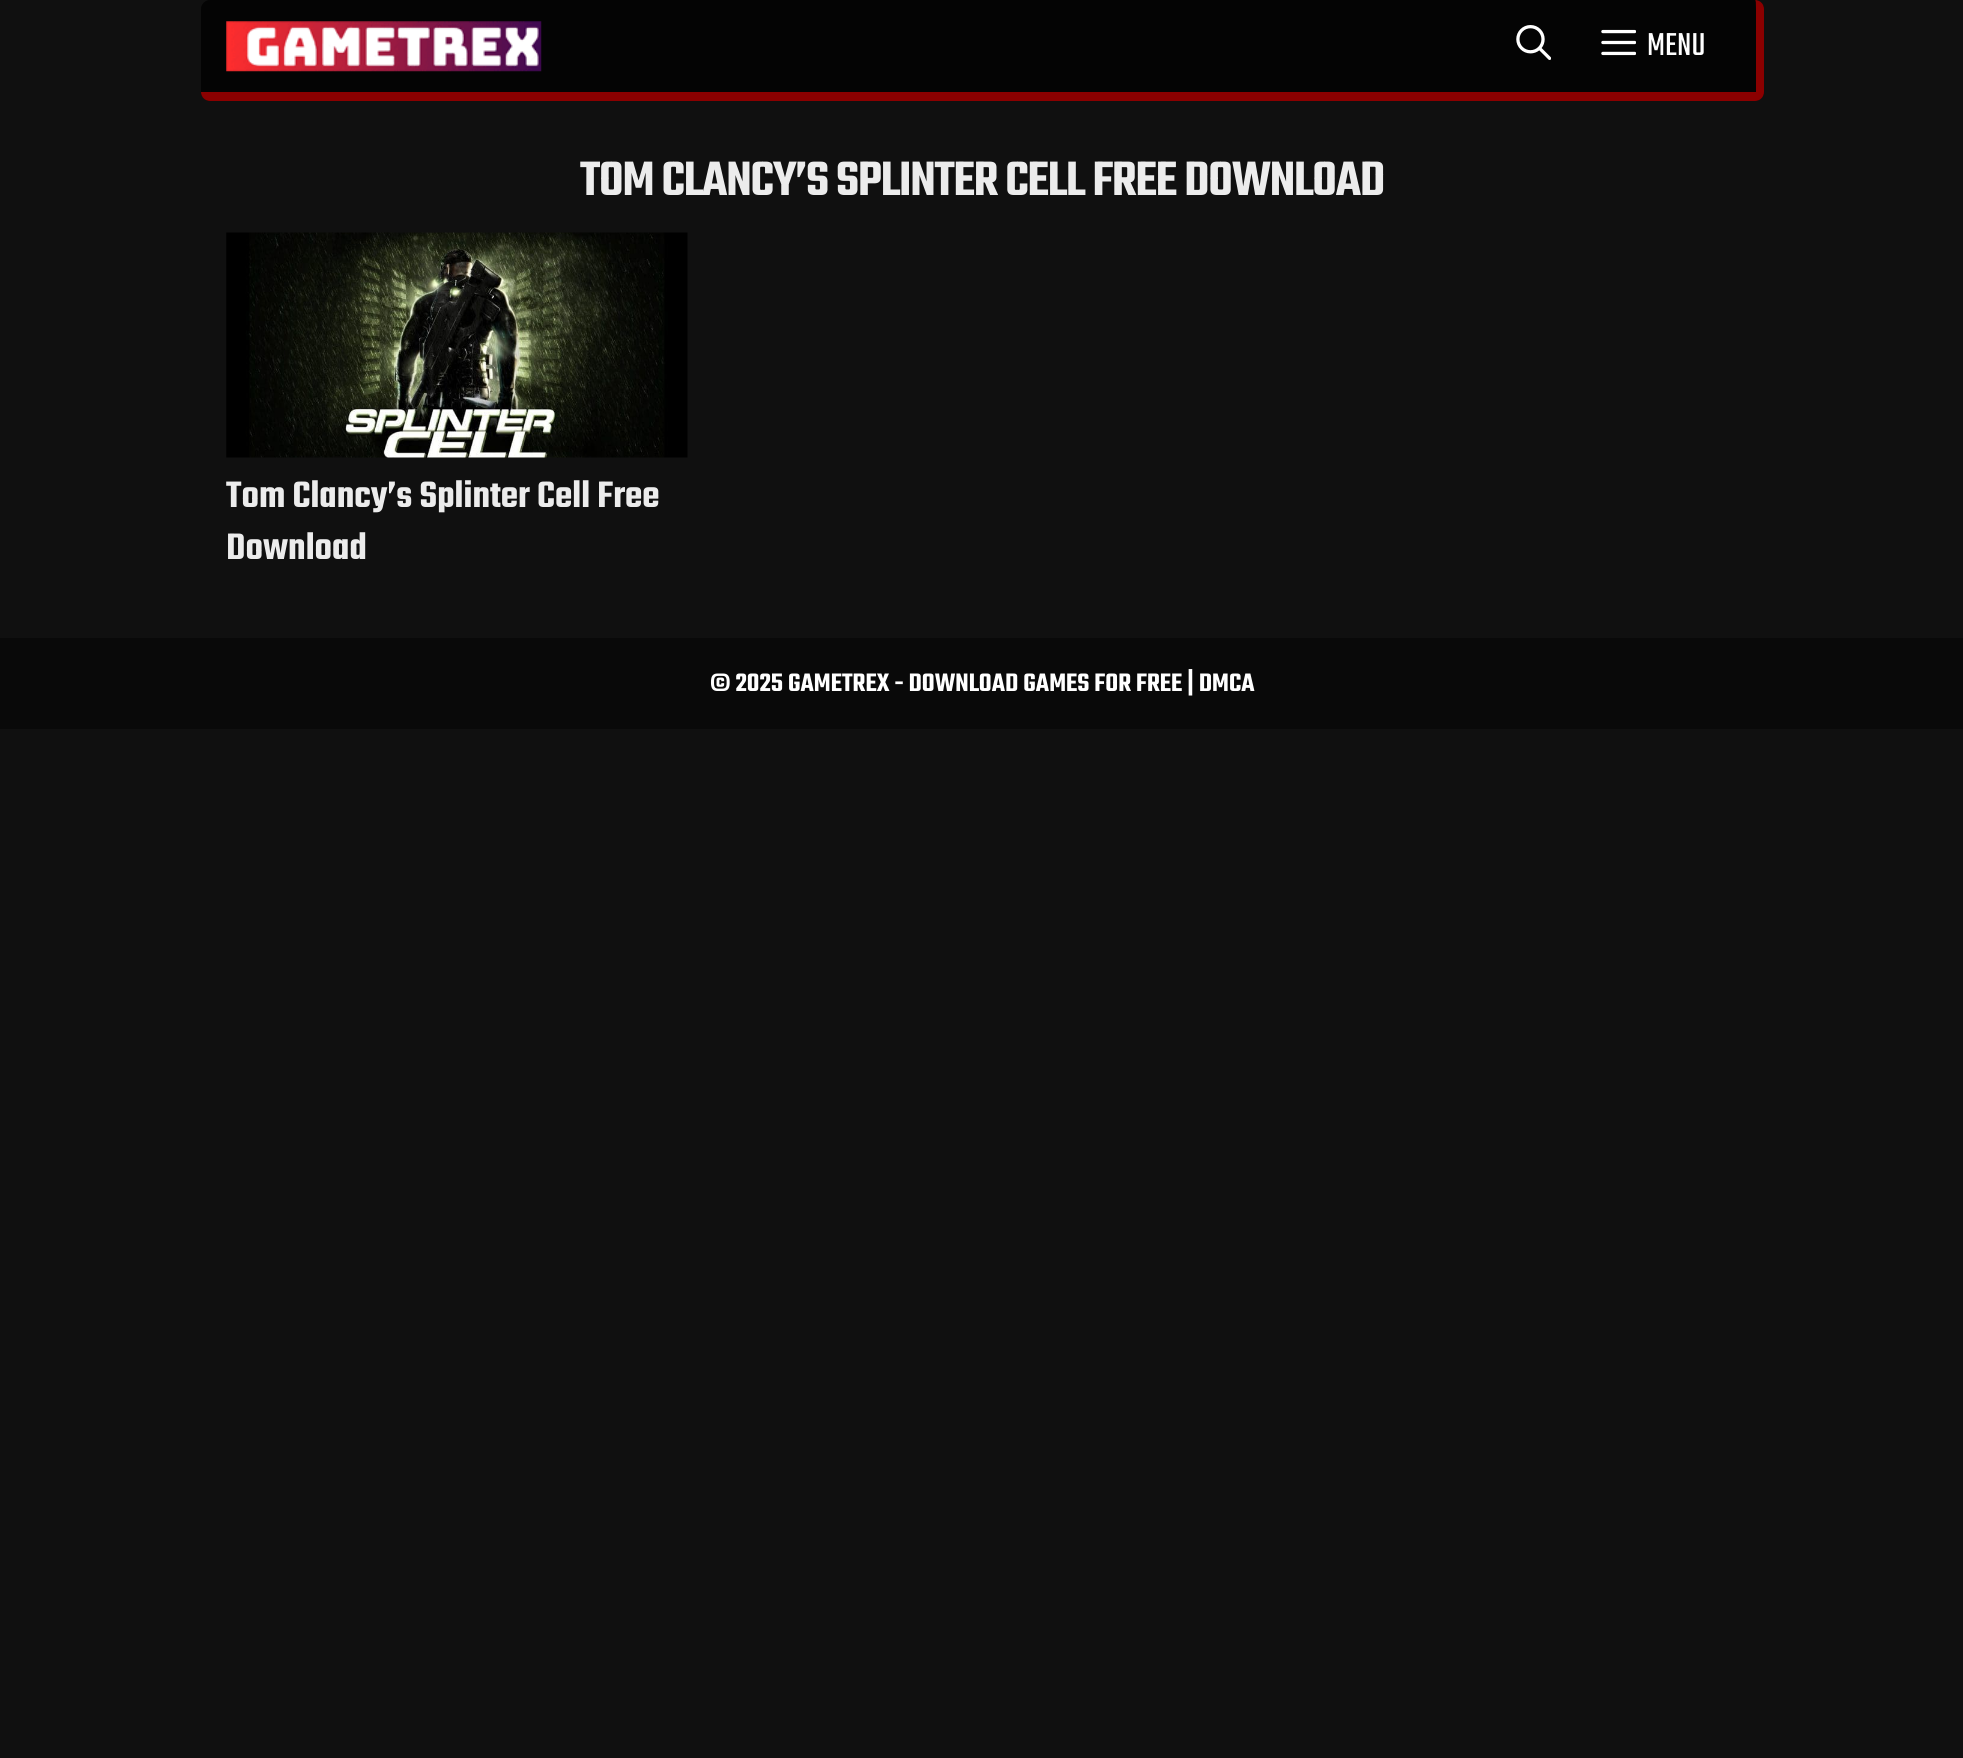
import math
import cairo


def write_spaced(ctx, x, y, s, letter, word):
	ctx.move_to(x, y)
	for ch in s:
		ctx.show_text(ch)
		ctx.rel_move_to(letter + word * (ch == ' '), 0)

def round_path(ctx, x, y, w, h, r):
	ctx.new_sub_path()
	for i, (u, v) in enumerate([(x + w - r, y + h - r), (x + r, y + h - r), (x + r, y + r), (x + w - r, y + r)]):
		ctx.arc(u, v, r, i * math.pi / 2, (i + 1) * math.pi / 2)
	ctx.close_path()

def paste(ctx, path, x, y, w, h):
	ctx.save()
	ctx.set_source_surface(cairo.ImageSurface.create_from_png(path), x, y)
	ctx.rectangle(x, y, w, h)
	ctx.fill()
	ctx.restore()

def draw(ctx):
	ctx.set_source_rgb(0.063, 0.063, 0.063)
	ctx.paint()
	ctx.set_source_rgb(0.016, 0.016, 0.016)
	round_path(ctx, 201, 0, 1563, 101, 9)
	ctx.fill()
	ctx.set_source_rgb(0.545, 0, 0)
	ctx.set_fill_rule(cairo.FILL_RULE_EVEN_ODD)
	ctx.new_path()
	ctx.move_to(210, 0)
	ctx.line_to(1755, 0)
	ctx.curve_to(1760, 0, 1764, 4, 1764, 9)
	ctx.line_to(1764, 92)
	ctx.curve_to(1764, 97, 1760, 101, 1755, 101)
	ctx.line_to(210, 101)
	ctx.curve_to(205, 101, 201, 97, 201, 92)
	ctx.line_to(201, 9)
	ctx.curve_to(201, 4, 205, 0, 210, 0)
	ctx.close_path()
	ctx.move_to(210, 0)
	ctx.line_to(1755, 0)
	ctx.curve_to(1756, 0, 1756, 4, 1756, 9)
	ctx.line_to(1756, 92)
	ctx.line_to(201, 92)
	ctx.line_to(201, 9)
	ctx.curve_to(201, 4, 205, 0, 210, 0)
	ctx.close_path()
	ctx.fill()
	paste(ctx, 'media/1.png', 226, 21, 316, 51)
	paste(ctx, 'media/2.png', 1516, 25, 35, 35)
	paste(ctx, 'media/3.png', 1601, 29, 35, 27)
	ctx.select_font_face('Teko')
	ctx.set_font_size(35)
	ctx.set_source_rgb(1, 1, 1)
	ctx.move_to(1647, 55)
	ctx.show_text('MENU')
	ctx.select_font_face('Teko SemiBold')
	ctx.set_font_size(52.5)
	ctx.set_source_rgb(0.922, 0.922, 0.922)
	write_spaced(ctx, 580, 195, 'TOM CLANCY’S SPLINTER CELL FREE DOWNLOAD', -1.25, 0)
	paste(ctx, 'media/4.png', 226, 232, 462, 226)
	ctx.set_font_size(40)
	ctx.move_to(226, 507)
	ctx.show_text('Tom Clancy’s Splinter Cell Free')
	ctx.move_to(226, 559)
	ctx.show_text('Download')
	ctx.set_source_rgb(0.039, 0.039, 0.039)
	ctx.rectangle(0, 638, 1963, 91)
	ctx.fill()
	ctx.set_font_size(27.5)
	ctx.set_source_rgb(1, 1, 1)
	ctx.move_to(710, 691)
	ctx.show_text('© 2025 GAMETREX - DOWNLOAD GAMES FOR FREE | DMCA')


surface = cairo.ImageSurface(cairo.FORMAT_RGB24, 1963, 1758)
ctx = cairo.Context(surface)
options = cairo.FontOptions()
options.set_hint_metrics(cairo.HINT_METRICS_OFF)
options.set_hint_style(cairo.HINT_STYLE_NONE)
ctx.set_font_options(options)
ctx.set_miter_limit(4)
draw(ctx)
surface.write_to_png('image.png')
